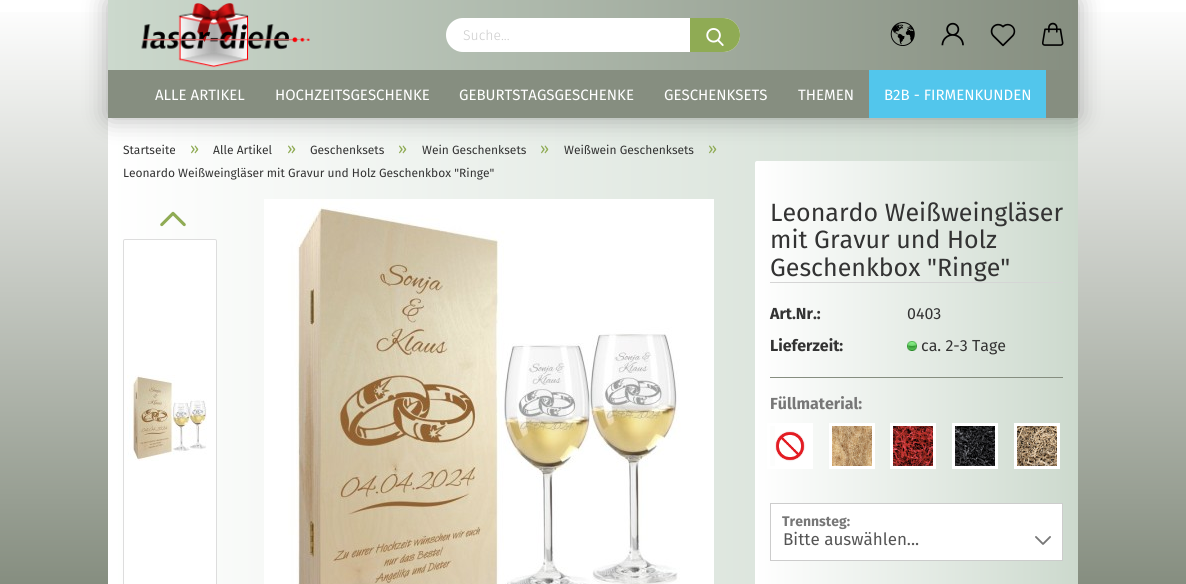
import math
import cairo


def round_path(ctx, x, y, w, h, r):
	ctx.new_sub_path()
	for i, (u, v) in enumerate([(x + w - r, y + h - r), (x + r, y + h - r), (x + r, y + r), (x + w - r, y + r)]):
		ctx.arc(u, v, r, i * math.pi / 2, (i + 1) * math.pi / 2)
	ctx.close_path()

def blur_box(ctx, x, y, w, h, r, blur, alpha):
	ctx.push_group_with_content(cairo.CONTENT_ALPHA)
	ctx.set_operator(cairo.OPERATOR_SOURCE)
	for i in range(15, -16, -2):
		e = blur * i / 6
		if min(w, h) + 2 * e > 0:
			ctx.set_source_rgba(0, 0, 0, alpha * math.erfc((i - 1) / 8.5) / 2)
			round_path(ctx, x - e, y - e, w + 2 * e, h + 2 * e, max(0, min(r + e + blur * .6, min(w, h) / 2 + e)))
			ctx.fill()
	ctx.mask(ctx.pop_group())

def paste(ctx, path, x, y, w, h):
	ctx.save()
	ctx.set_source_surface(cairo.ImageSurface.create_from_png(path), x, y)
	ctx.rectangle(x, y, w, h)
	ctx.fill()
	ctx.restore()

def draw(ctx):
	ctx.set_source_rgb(1, 1, 1)
	ctx.paint()
	gradient = cairo.LinearGradient(593, 0, 593, 584)
	gradient.add_color_stop_rgba(0, 1, 1, 1, 1)
	gradient.add_color_stop_rgba(1, 0.525, 0.557, 0.502, 1)
	ctx.set_source(gradient)
	ctx.rectangle(0, 12, 1186, 572)
	ctx.fill()
	gradient = cairo.LinearGradient(108, 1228, 1078, 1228)
	gradient.add_color_stop_rgba(0, 1, 1, 1, 1)
	gradient.add_color_stop_rgba(1, 0.8, 0.851, 0.804, 1)
	ctx.set_source(gradient)
	ctx.rectangle(108, 118, 970, 466)
	ctx.fill()
	ctx.set_source_rgb(0, 0, 0)
	blur_box(ctx, 108, 0, 970, 118, 2, 12.5, 0.3)
	gradient = cairo.LinearGradient(108, 59, 1078, 59)
	gradient.add_color_stop_rgba(0, 0.8, 0.851, 0.804, 1)
	gradient.add_color_stop_rgba(1, 0.525, 0.557, 0.502, 1)
	ctx.set_source(gradient)
	ctx.rectangle(108, 0, 970, 70)
	ctx.fill()
	paste(ctx, 'media/1.png', 141, 3, 169, 65)
	ctx.set_source_rgb(1, 1, 1)
	round_path(ctx, 447, 19, 292, 32, 16)
	ctx.fill_preserve()
	ctx.stroke()
	ctx.select_font_face('Fira Sans Light')
	ctx.set_font_size(14)
	ctx.set_source_rgb(0.8, 0.8, 0.8)
	ctx.move_to(463, 40)
	ctx.show_text('Suche...')
	ctx.set_source_rgb(0.561, 0.671, 0.329)
	ctx.new_path()
	ctx.move_to(690, 18)
	ctx.line_to(723, 18)
	ctx.curve_to(732.5, 18, 740, 25.5, 740, 35)
	ctx.curve_to(740, 44.5, 732.5, 52, 723, 52)
	ctx.line_to(690, 52)
	ctx.close_path()
	ctx.fill()
	paste(ctx, 'media/2.png', 706, 28, 18, 18)
	paste(ctx, 'media/3.png', 890, 22, 25, 24)
	paste(ctx, 'media/4.png', 941, 22, 23, 24)
	paste(ctx, 'media/5.png', 990, 23, 26, 24)
	paste(ctx, 'media/6.png', 1042, 22, 22, 24)
	ctx.set_source_rgb(0.525, 0.557, 0.502)
	ctx.rectangle(108, 70, 970, 48)
	ctx.fill()
	ctx.select_font_face('Fira Sans')
	ctx.set_font_size(15)
	ctx.set_source_rgb(1, 1, 1)
	for x, y, s in [
		(155, 100, 'ALLE ARTIKEL'),
		(275, 100, 'HOCHZEITSGESCHENKE'),
		(459, 100, 'GEBURTSTAGSGESCHENKE'),
		(664, 100, 'GESCHENKSETS'),
		(798, 100, 'THEMEN'),
	]:
		ctx.move_to(x, y)
		ctx.show_text(s)
	ctx.set_source_rgb(0.322, 0.776, 0.922)
	ctx.rectangle(869, 70, 177, 48)
	ctx.fill()
	ctx.set_source_rgb(1, 1, 1)
	ctx.move_to(884, 100)
	ctx.show_text('B2B - FIRMENKUNDEN')
	ctx.set_font_size(12)
	ctx.set_source_rgb(0.2, 0.2, 0.2)
	ctx.move_to(123, 154)
	ctx.show_text('Startseite')
	ctx.set_font_size(16)
	ctx.set_source_rgb(0.561, 0.671, 0.329)
	ctx.move_to(190, 154)
	ctx.show_text('»')
	ctx.set_font_size(12)
	ctx.set_source_rgb(0.2, 0.2, 0.2)
	ctx.move_to(213, 154)
	ctx.show_text('Alle Artikel')
	ctx.set_font_size(16)
	ctx.set_source_rgb(0.561, 0.671, 0.329)
	ctx.move_to(287, 154)
	ctx.show_text('»')
	ctx.set_font_size(12)
	ctx.set_source_rgb(0.2, 0.2, 0.2)
	ctx.move_to(310, 154)
	ctx.show_text('Geschenksets')
	ctx.set_font_size(16)
	ctx.set_source_rgb(0.561, 0.671, 0.329)
	ctx.move_to(398, 154)
	ctx.show_text('»')
	ctx.set_font_size(12)
	ctx.set_source_rgb(0.2, 0.2, 0.2)
	ctx.move_to(422, 154)
	ctx.show_text('Wein Geschenksets')
	ctx.set_font_size(16)
	ctx.set_source_rgb(0.561, 0.671, 0.329)
	ctx.move_to(540, 154)
	ctx.show_text('»')
	ctx.set_font_size(12)
	ctx.set_source_rgb(0.2, 0.2, 0.2)
	ctx.move_to(564, 154)
	ctx.show_text('Weißwein Geschenksets')
	ctx.set_font_size(16)
	ctx.set_source_rgb(0.561, 0.671, 0.329)
	ctx.move_to(708, 154)
	ctx.show_text('»')
	ctx.set_font_size(12)
	ctx.set_source_rgb(0.2, 0.2, 0.2)
	ctx.move_to(123, 177)
	ctx.show_text('Leonardo Weißweingläser mit Gravur und Holz Geschenkbox "Ringe"')
	paste(ctx, 'media/7.png', 160, 211, 26, 16)
	ctx.set_source_rgb(1, 1, 1)
	round_path(ctx, 123.5, 239.5, 93, 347, 1.5)
	ctx.fill_preserve()
	ctx.set_source_rgb(0.867, 0.867, 0.867)
	ctx.set_line_width(1)
	ctx.stroke()
	paste(ctx, 'media/8.png', 127, 375, 80, 86)
	paste(ctx, 'media/9.png', 264, 199, 450, 385)
	gradient = cairo.LinearGradient(755, 524, 1078, 524)
	gradient.add_color_stop_rgba(0, 1, 1, 1, 1)
	gradient.add_color_stop_rgba(1, 0.8, 0.851, 0.804, 1)
	ctx.set_source(gradient)
	round_path(ctx, 755, 161, 323, 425, 2)
	ctx.fill()
	ctx.set_source_rgb(0.835, 0.835, 0.835)
	ctx.rectangle(770, 282, 293, 1)
	ctx.fill()
	ctx.set_font_size(25)
	ctx.set_source_rgb(0.2, 0.2, 0.2)
	for x, y, s in [
		(770, 221, 'Leonardo Weißweingläser'),
		(770, 248, 'mit Gravur und Holz'),
		(770, 276, 'Geschenkbox "Ringe"'),
	]:
		ctx.move_to(x, y)
		ctx.show_text(s)
	ctx.set_source_rgb(0.525, 0.557, 0.502)
	ctx.rectangle(770, 377, 293, 1)
	ctx.fill()
	ctx.select_font_face('Fira Sans', cairo.FONT_SLANT_NORMAL, cairo.FONT_WEIGHT_BOLD)
	ctx.set_font_size(16)
	ctx.set_source_rgb(0.2, 0.2, 0.2)
	ctx.move_to(770, 319)
	ctx.show_text('Art.Nr.:')
	ctx.select_font_face('Fira Sans')
	ctx.move_to(907, 319)
	ctx.show_text('0403')
	ctx.select_font_face('Fira Sans', cairo.FONT_SLANT_NORMAL, cairo.FONT_WEIGHT_BOLD)
	ctx.move_to(770, 351)
	ctx.show_text('Lieferzeit:')
	paste(ctx, 'media/10.png', 907, 341, 10, 10)
	ctx.select_font_face('Fira Sans')
	ctx.move_to(921, 351)
	ctx.show_text('ca. 2-3 Tage')
	ctx.select_font_face('Fira Sans', cairo.FONT_SLANT_NORMAL, cairo.FONT_WEIGHT_BOLD)
	ctx.set_source_rgb(0.467, 0.467, 0.467)
	ctx.move_to(770, 409)
	ctx.show_text('Füllmaterial:')
	ctx.rectangle(768.5, 424.5, 43, 43)
	ctx.set_source_rgb(1, 1, 1)
	ctx.set_line_width(3)
	ctx.stroke()
	paste(ctx, 'media/11.png', 775, 426, 35, 40)
	ctx.rectangle(830.5, 424.5, 43, 43)
	ctx.stroke()
	paste(ctx, 'media/12.png', 832, 426, 40, 40)
	ctx.rectangle(891.5, 424.5, 43, 43)
	ctx.stroke()
	paste(ctx, 'media/13.png', 893, 426, 40, 40)
	ctx.rectangle(953.5, 424.5, 43, 43)
	ctx.stroke()
	paste(ctx, 'media/14.png', 955, 426, 40, 40)
	ctx.rectangle(1015.5, 424.5, 43, 43)
	ctx.stroke()
	paste(ctx, 'media/15.png', 1017, 426, 40, 40)
	ctx.rectangle(770.5, 503.5, 292, 57)
	ctx.fill_preserve()
	ctx.set_source_rgb(0.8, 0.8, 0.8)
	ctx.set_line_width(1)
	ctx.stroke()
	ctx.set_font_size(14)
	ctx.set_source_rgb(0.467, 0.467, 0.467)
	ctx.move_to(782, 526)
	ctx.show_text('Trennsteg:')
	ctx.select_font_face('Fira Sans')
	ctx.set_font_size(17)
	ctx.set_source_rgb(0.333, 0.333, 0.333)
	ctx.move_to(783, 545)
	ctx.show_text('Bitte auswählen...')
	paste(ctx, 'media/16.png', 1035, 536, 16, 9)


surface = cairo.ImageSurface(cairo.FORMAT_RGB24, 1186, 584)
ctx = cairo.Context(surface)
options = cairo.FontOptions()
options.set_hint_metrics(cairo.HINT_METRICS_OFF)
options.set_hint_style(cairo.HINT_STYLE_NONE)
ctx.set_font_options(options)
ctx.set_miter_limit(4)
draw(ctx)
surface.write_to_png('image.png')
